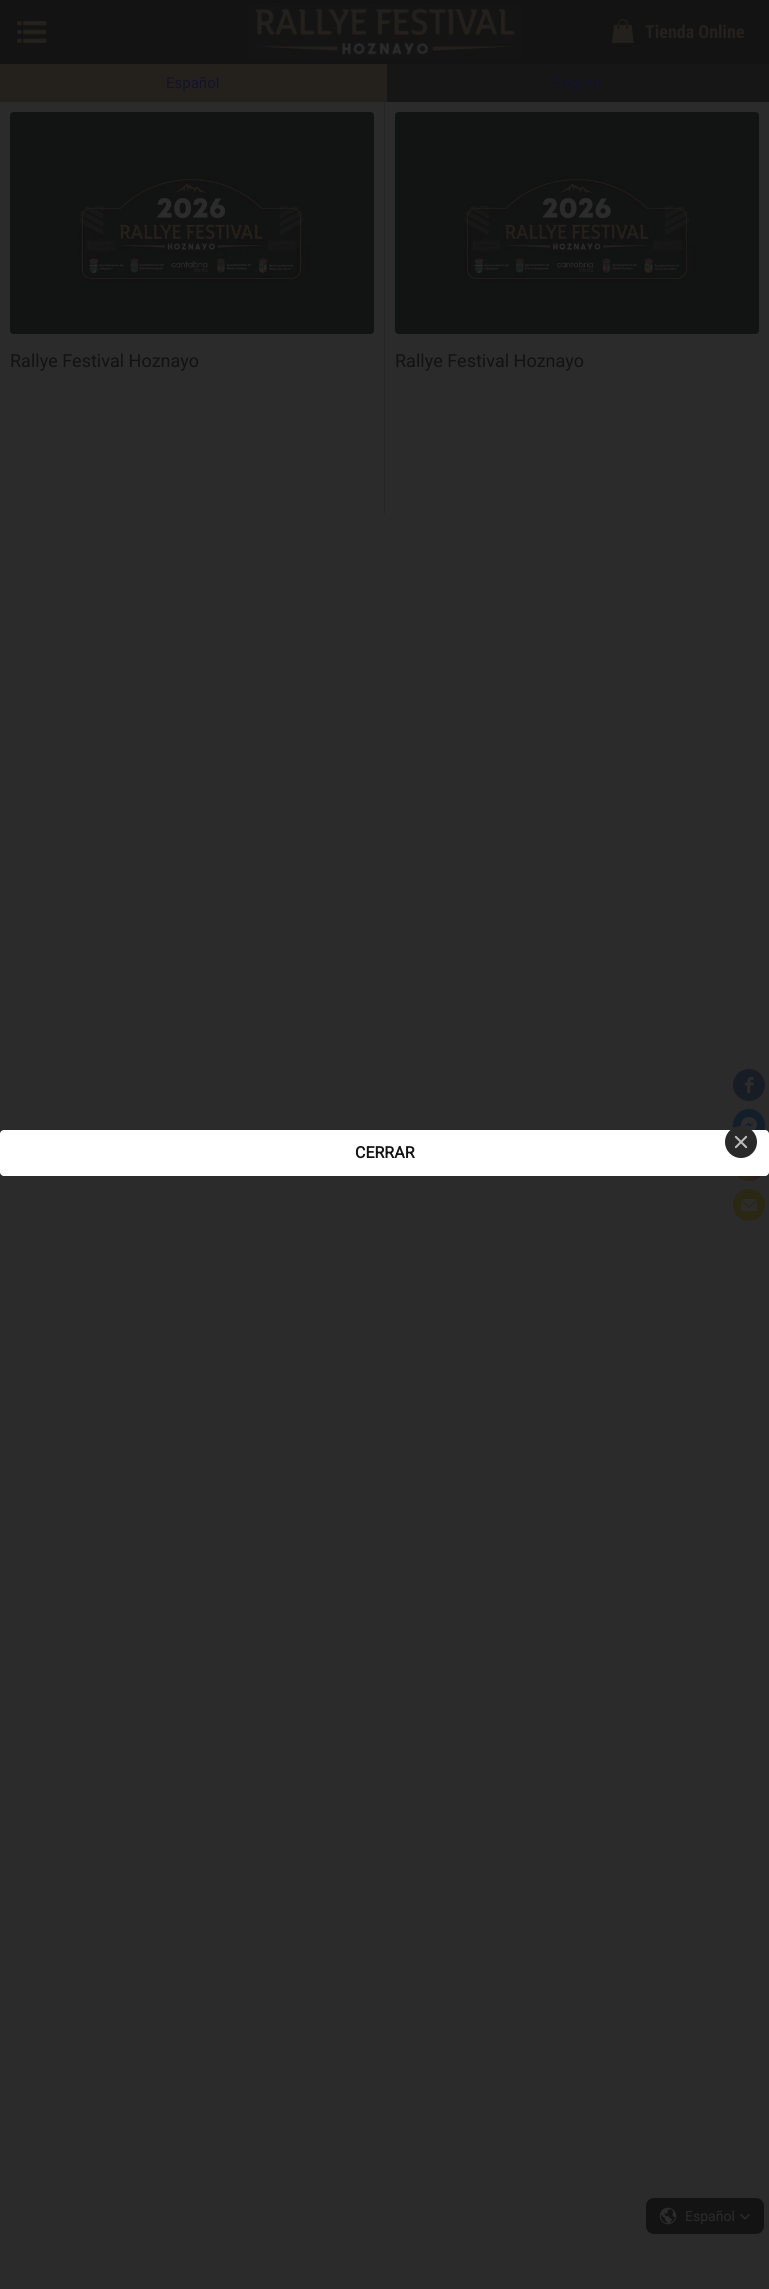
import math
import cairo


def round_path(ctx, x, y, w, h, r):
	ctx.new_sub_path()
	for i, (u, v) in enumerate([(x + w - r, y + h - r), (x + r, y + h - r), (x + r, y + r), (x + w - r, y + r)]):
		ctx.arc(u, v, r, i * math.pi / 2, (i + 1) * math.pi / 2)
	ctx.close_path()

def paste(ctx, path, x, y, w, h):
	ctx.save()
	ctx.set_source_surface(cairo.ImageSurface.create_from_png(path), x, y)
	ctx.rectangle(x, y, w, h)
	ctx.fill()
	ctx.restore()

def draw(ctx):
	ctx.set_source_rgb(0.169, 0.169, 0.169)
	ctx.paint()
	ctx.set_source_rgb(0.078, 0.078, 0.078)
	ctx.rectangle(0, 0, 769, 64)
	ctx.fill()
	paste(ctx, 'media/1.png', 17, 21, 30, 22)
	paste(ctx, 'media/2.png', 247, 4, 275, 55)
	paste(ctx, 'media/3.png', 612, 19, 22, 24)
	ctx.select_font_face('Roboto Condensed', cairo.FONT_SLANT_NORMAL, cairo.FONT_WEIGHT_BOLD)
	ctx.set_font_size(18)
	ctx.set_source_rgb(0.141, 0.129, 0.11)
	ctx.move_to(645, 38)
	ctx.show_text('Tienda Online')
	ctx.set_source_rgb(0.086, 0.086, 0.086)
	ctx.rectangle(387, 64, 382, 38)
	ctx.fill()
	ctx.set_source_rgb(0.141, 0.129, 0.11)
	ctx.rectangle(0, 64, 387, 38)
	ctx.fill()
	ctx.select_font_face('Roboto')
	ctx.set_font_size(15)
	ctx.set_source_rgb(0.071, 0.071, 0.165)
	ctx.move_to(166, 88)
	ctx.show_text('Español')
	ctx.move_to(553, 88)
	ctx.show_text('English')
	ctx.set_source_rgb(0.149, 0.149, 0.149)
	ctx.rectangle(384, 102, 1, 412)
	ctx.fill()
	paste(ctx, 'media/4.png', 10, 112, 364, 222)
	ctx.set_font_size(18)
	ctx.set_source_rgb(0.071, 0.071, 0.071)
	ctx.move_to(10, 367)
	ctx.show_text('Rallye Festival Hoznayo')
	paste(ctx, 'media/5.png', 395, 112, 364, 222)
	ctx.move_to(395, 367)
	ctx.show_text('Rallye Festival Hoznayo')
	ctx.set_source_rgb(0.071, 0.122, 0.169)
	ctx.new_path()
	ctx.arc(749, 1125, 16, 0, 2 * math.pi)
	ctx.fill()
	gradient = cairo.LinearGradient(749, 1149, 749, 1181)
	gradient.add_color_stop_rgba(0, 0.11, 0.106, 0.149, 1)
	gradient.add_color_stop_rgba(0.3, 0.145, 0.09, 0.125, 1)
	gradient.add_color_stop_rgba(0.5, 0.161, 0.094, 0.11, 1)
	gradient.add_color_stop_rgba(0.7, 0.169, 0.118, 0.094, 1)
	gradient.add_color_stop_rgba(1, 0.169, 0.149, 0.114, 1)
	ctx.set_source(gradient)
	ctx.arc(749, 1165, 16, 0, 2 * math.pi)
	ctx.fill()
	gradient = cairo.RadialGradient(765, 1181, 0, 765, 1181, 45)
	gradient.add_color_stop_rgba(0, 0.157, 0.09, 0.118, 1)
	gradient.add_color_stop_rgba(1, 0.157, 0.09, 0.118, 0)
	ctx.set_source(gradient)
	ctx.arc(749, 1165, 16, 0, 2 * math.pi)
	ctx.fill()
	gradient = cairo.RadialGradient(733, 1194, 0, 733, 1194, 55)
	gradient.add_color_stop_rgba(0, 0.169, 0.149, 0.11, 1)
	gradient.add_color_stop_rgba(0.5, 0.169, 0.149, 0.11, 0)
	ctx.set_source(gradient)
	ctx.arc(749, 1165, 16, 0, 2 * math.pi)
	ctx.fill()
	gradient = cairo.RadialGradient(744, 1178, 0, 744, 1178, 36)
	gradient.add_color_stop_rgba(0, 0.169, 0.149, 0.11, 1)
	gradient.add_color_stop_rgba(0.5, 0.169, 0.149, 0.11, 0)
	ctx.set_source(gradient)
	ctx.arc(749, 1165, 16, 0, 2 * math.pi)
	ctx.fill()
	ctx.set_source_rgb(1, 1, 1)
	round_path(ctx, 0, 1130, 769, 46, 4)
	ctx.fill()
	ctx.select_font_face('Roboto', cairo.FONT_SLANT_NORMAL, cairo.FONT_WEIGHT_BOLD)
	ctx.set_font_size(16)
	ctx.set_source_rgb(0.071, 0.071, 0.071)
	ctx.move_to(355, 1158)
	ctx.show_text('CERRAR')
	paste(ctx, 'media/8.png', 741, 1117, 16, 13)
	ctx.set_source_rgb(0.161, 0.161, 0.161)
	ctx.arc(741, 1142, 16, 0, 2 * math.pi)
	ctx.fill()
	paste(ctx, 'media/6.png', 734, 1135, 14, 14)
	ctx.set_source_rgb(0.094, 0.11, 0.145)
	ctx.arc(749, 1085, 16, 0, 2 * math.pi)
	ctx.fill()
	paste(ctx, 'media/7.png', 744, 1077, 10, 16)
	ctx.set_source_rgb(0.165, 0.153, 0.075)
	ctx.arc(749, 1205, 16, 0, 2 * math.pi)
	ctx.fill()
	paste(ctx, 'media/9.png', 741, 1198, 16, 14)
	ctx.set_source_rgb(0.078, 0.078, 0.078)
	round_path(ctx, 646, 2198, 118, 36, 8)
	ctx.fill()
	paste(ctx, 'media/10.png', 659, 2207, 18, 18)
	ctx.select_font_face('Roboto')
	ctx.set_font_size(14)
	ctx.set_source_rgb(0.169, 0.169, 0.169)
	ctx.move_to(685, 2221)
	ctx.show_text('Español')
	paste(ctx, 'media/11.png', 740, 2214, 10, 6)


surface = cairo.ImageSurface(cairo.FORMAT_RGB24, 769, 2289)
ctx = cairo.Context(surface)
options = cairo.FontOptions()
options.set_hint_metrics(cairo.HINT_METRICS_OFF)
options.set_hint_style(cairo.HINT_STYLE_NONE)
ctx.set_font_options(options)
ctx.set_miter_limit(4)
draw(ctx)
surface.write_to_png('image.png')
